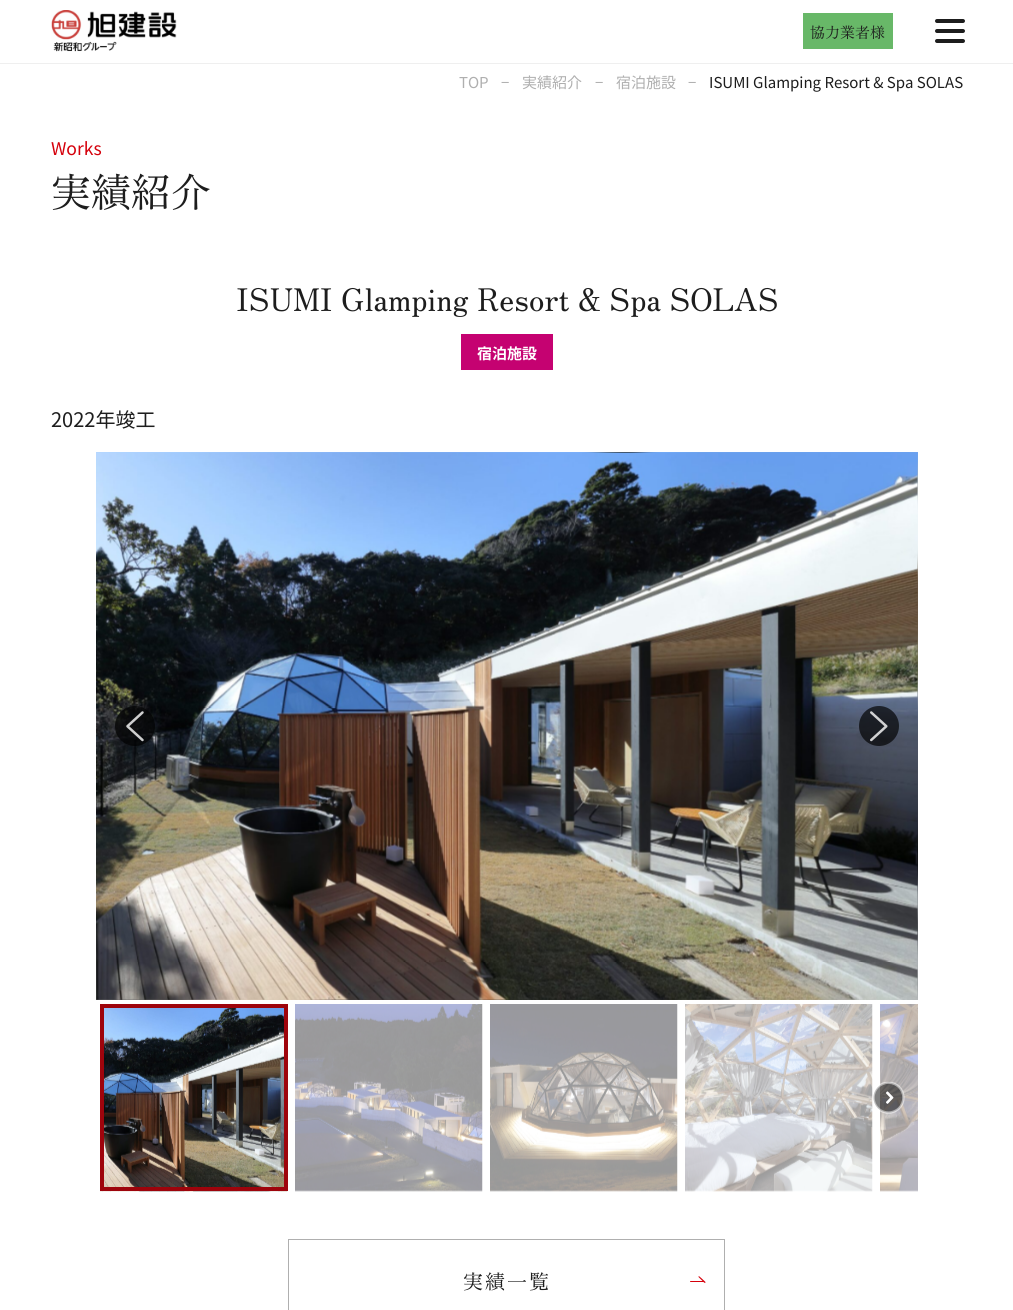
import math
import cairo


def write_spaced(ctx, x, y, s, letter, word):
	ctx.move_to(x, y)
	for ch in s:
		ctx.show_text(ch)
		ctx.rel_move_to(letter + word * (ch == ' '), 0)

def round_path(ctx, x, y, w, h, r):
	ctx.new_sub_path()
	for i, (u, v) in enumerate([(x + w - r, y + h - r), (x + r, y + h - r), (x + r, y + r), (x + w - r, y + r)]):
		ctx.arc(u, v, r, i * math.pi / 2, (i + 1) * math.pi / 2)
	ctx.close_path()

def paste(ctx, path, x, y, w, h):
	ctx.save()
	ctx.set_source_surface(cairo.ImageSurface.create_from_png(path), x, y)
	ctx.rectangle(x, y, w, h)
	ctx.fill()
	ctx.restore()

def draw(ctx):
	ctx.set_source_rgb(1, 1, 1)
	ctx.paint()
	ctx.set_source_rgb(0.937, 0.937, 0.937)
	ctx.rectangle(0, 63, 1013, 1)
	ctx.fill()
	paste(ctx, 'media/1.png', 51, 10, 126, 42)
	ctx.set_source_rgb(0.408, 0.722, 0.408)
	ctx.rectangle(803, 13, 90, 36)
	ctx.fill()
	ctx.select_font_face('Zen Old Mincho')
	ctx.set_font_size(15)
	ctx.set_source_rgb(0.114, 0.114, 0.114)
	ctx.move_to(810, 38)
	ctx.show_text('協力業者様')
	round_path(ctx, 935, 19, 30, 4, 2)
	ctx.fill()
	round_path(ctx, 935, 29, 30, 4, 2)
	ctx.fill()
	round_path(ctx, 935, 39, 30, 4, 2)
	ctx.fill()
	ctx.select_font_face('Noto Sans JP')
	ctx.set_source_rgb(0.686, 0.686, 0.686)
	for x, y, s in [
		(459, 88, 'TOP'),
		(501, 88, '−'),
		(522, 88, '実績紹介'),
		(595, 88, '−'),
		(616, 88, '宿泊施設'),
		(688, 88, '−'),
	]:
		ctx.move_to(x, y)
		ctx.show_text(s)
	ctx.set_source_rgb(0.114, 0.114, 0.114)
	ctx.move_to(709, 88)
	ctx.show_text('ISUMI Glamping Resort & Spa SOLAS')
	ctx.set_font_size(17.5)
	ctx.set_source_rgb(0.835, 0, 0.043)
	ctx.move_to(51, 155)
	ctx.show_text('Works')
	ctx.select_font_face('Zen Old Mincho')
	ctx.set_font_size(40)
	ctx.set_source_rgb(0.114, 0.114, 0.114)
	ctx.move_to(51, 207)
	ctx.show_text('実績紹介')
	ctx.set_font_size(31.25)
	ctx.move_to(236, 311)
	ctx.show_text('ISUMI Glamping Resort & Spa SOLAS')
	ctx.set_source_rgb(0.773, 0.008, 0.443)
	ctx.rectangle(461, 334, 92, 36)
	ctx.fill()
	ctx.select_font_face('Noto Sans JP', cairo.FONT_SLANT_NORMAL, cairo.FONT_WEIGHT_BOLD)
	ctx.set_font_size(15)
	ctx.set_source_rgb(1, 1, 1)
	ctx.move_to(477, 359)
	ctx.show_text('宿泊施設')
	ctx.select_font_face('Noto Sans JP')
	ctx.set_font_size(20)
	ctx.set_source_rgb(0.114, 0.114, 0.114)
	ctx.move_to(51, 427)
	ctx.show_text('2022年竣工')
	paste(ctx, 'media/2.png', 96, 452, 822, 548)
	paste(ctx, 'media/3.png', 96, 453, 822, 547)
	ctx.set_source_rgba(0, 0, 0, 0.67)
	ctx.arc(135, 726, 20, 0, 2 * math.pi)
	ctx.fill()
	paste(ctx, 'media/4.png', 126, 711, 18, 31)
	ctx.arc(879, 726, 20, 0, 2 * math.pi)
	ctx.fill()
	paste(ctx, 'media/5.png', 870, 711, 18, 31)
	paste(ctx, 'media/6.png', 100, 1008, 188, 184)
	ctx.rectangle(102, 1006, 184, 183)
	ctx.set_source_rgb(0.62, 0.016, 0.047)
	ctx.set_line_width(4)
	ctx.stroke()
	paste(ctx, 'media/7.png', 295, 1004, 188, 188)
	paste(ctx, 'media/8.png', 490, 1004, 188, 188)
	paste(ctx, 'media/9.png', 685, 1004, 188, 188)
	paste(ctx, 'media/10.png', 880, 1004, 38, 188)
	paste(ctx, 'media/11.png', 873, 1081, 32, 33)
	ctx.rectangle(288.5, 1239.5, 436, 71)
	ctx.set_source_rgb(0.686, 0.686, 0.686)
	ctx.set_line_width(1)
	ctx.stroke()
	ctx.select_font_face('Zen Old Mincho')
	ctx.set_source_rgb(0.114, 0.114, 0.114)
	write_spaced(ctx, 463, 1289, '実績一覧', 2, 0)
	ctx.set_source_rgb(0.835, 0, 0.043)
	round_path(ctx, 690, 1281, 14, 1, 0.5)
	ctx.fill()
	ctx.new_path()
	ctx.move_to(699.5, 1276.5)
	ctx.line_to(705.5, 1282)
	ctx.line_to(705.5, 1282.5)
	ctx.curve_to(704.5, 1283.5, 703.5, 1282, 703.5, 1282)
	ctx.line_to(698.5, 1277)
	ctx.curve_to(698, 1276.5, 699, 1276, 699.5, 1276.5)
	ctx.close_path()
	ctx.fill()


surface = cairo.ImageSurface(cairo.FORMAT_RGB24, 1013, 1310)
ctx = cairo.Context(surface)
options = cairo.FontOptions()
options.set_hint_metrics(cairo.HINT_METRICS_OFF)
options.set_hint_style(cairo.HINT_STYLE_NONE)
ctx.set_font_options(options)
ctx.set_miter_limit(4)
draw(ctx)
surface.write_to_png('image.png')
